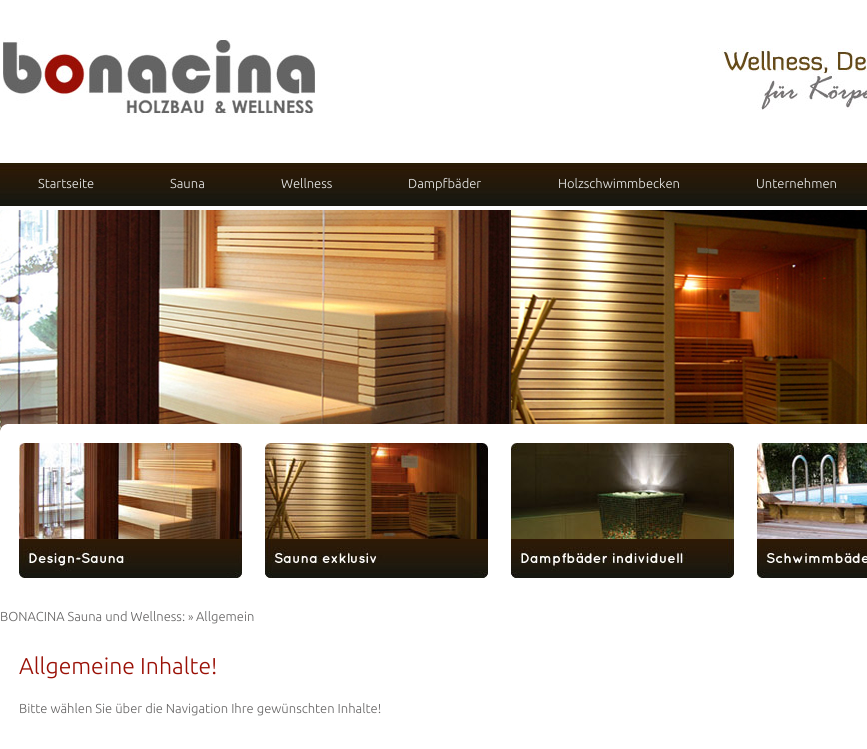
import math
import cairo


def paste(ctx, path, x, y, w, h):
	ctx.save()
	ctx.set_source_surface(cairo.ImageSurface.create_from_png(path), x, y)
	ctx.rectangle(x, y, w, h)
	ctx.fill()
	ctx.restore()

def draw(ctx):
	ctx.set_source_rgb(1, 1, 1)
	ctx.paint()
	paste(ctx, 'media/1.png', 3, 38, 312, 79)
	paste(ctx, 'media/2.png', 717, 48, 150, 62)
	paste(ctx, 'media/3.png', 0, 163, 867, 43)
	ctx.select_font_face('Ubuntu Light')
	ctx.set_font_size(13)
	ctx.set_source_rgb(0.933, 0.933, 0.933)
	for x, y, s in [
		(38, 188, 'Startseite'),
		(170, 188, 'Sauna'),
		(281, 188, 'Wellness'),
		(408, 188, 'Dampfbäder'),
		(558, 188, 'Holzschwimmbecken'),
		(756, 188, 'Unternehmen'),
	]:
		ctx.move_to(x, y)
		ctx.show_text(s)
	paste(ctx, 'media/4.png', 0, 210, 867, 222)
	paste(ctx, 'media/5.png', 0, 424, 867, 50)
	paste(ctx, 'media/6.png', 19, 443, 223, 135)
	paste(ctx, 'media/7.png', 265, 443, 223, 135)
	paste(ctx, 'media/8.png', 511, 443, 223, 135)
	paste(ctx, 'media/9.png', 757, 443, 110, 135)
	ctx.set_source_rgb(0.392, 0.388, 0.388)
	ctx.move_to(0, 621)
	ctx.show_text('BONACINA Sauna und Wellness:')
	ctx.set_font_size(12)
	ctx.move_to(188, 621)
	ctx.show_text('»')
	ctx.set_font_size(13)
	ctx.move_to(196, 621)
	ctx.show_text('Allgemein')
	ctx.set_font_size(23)
	ctx.set_source_rgb(0.604, 0.063, 0.024)
	ctx.move_to(19, 674)
	ctx.show_text('Allgemeine Inhalte!')
	ctx.set_font_size(13)
	ctx.set_source_rgb(0.392, 0.388, 0.388)
	ctx.move_to(19, 713)
	ctx.show_text('Bitte wählen Sie über die Navigation Ihre gewünschten Inhalte!')


surface = cairo.ImageSurface(cairo.FORMAT_RGB24, 867, 749)
ctx = cairo.Context(surface)
options = cairo.FontOptions()
options.set_hint_metrics(cairo.HINT_METRICS_OFF)
options.set_hint_style(cairo.HINT_STYLE_NONE)
ctx.set_font_options(options)
ctx.set_miter_limit(4)
draw(ctx)
surface.write_to_png('image.png')
